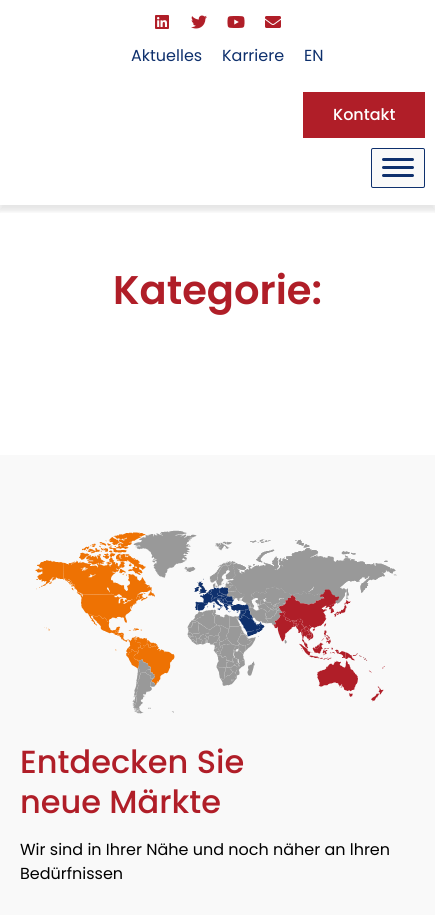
import math
import cairo


def round_path(ctx, x, y, w, h, r):
	ctx.new_sub_path()
	for i, (u, v) in enumerate([(x + w - r, y + h - r), (x + r, y + h - r), (x + r, y + r), (x + w - r, y + r)]):
		ctx.arc(u, v, r, i * math.pi / 2, (i + 1) * math.pi / 2)
	ctx.close_path()

def blur_box(ctx, x, y, w, h, r, blur, alpha):
	ctx.push_group_with_content(cairo.CONTENT_ALPHA)
	ctx.set_operator(cairo.OPERATOR_SOURCE)
	for i in range(15, -16, -2):
		e = blur * i / 6
		if min(w, h) + 2 * e > 0:
			ctx.set_source_rgba(0, 0, 0, alpha * math.erfc((i - 1) / 8.5) / 2)
			round_path(ctx, x - e, y - e, w + 2 * e, h + 2 * e, max(0, min(r + e + blur * .6, min(w, h) / 2 + e)))
			ctx.fill()
	ctx.mask(ctx.pop_group())

def paste(ctx, path, x, y, w, h):
	ctx.save()
	ctx.set_source_surface(cairo.ImageSurface.create_from_png(path), x, y)
	ctx.rectangle(x, y, w, h)
	ctx.fill()
	ctx.restore()

def draw(ctx):
	ctx.set_source_rgb(1, 1, 1)
	ctx.paint()
	paste(ctx, 'media/1.png', 155, 15, 14, 14)
	paste(ctx, 'media/2.png', 191, 15, 16, 14)
	paste(ctx, 'media/3.png', 227, 16, 18, 12)
	paste(ctx, 'media/4.png', 265, 16, 16, 12)
	ctx.select_font_face('Poppins')
	ctx.set_font_size(16)
	ctx.set_source_rgb(0.055, 0.188, 0.427)
	for x, y, s in [
		(131, 61, 'Aktuelles'),
		(222, 61, 'Karriere'),
		(304, 61, 'EN'),
	]:
		ctx.move_to(x, y)
		ctx.show_text(s)
	ctx.save()
	ctx.rectangle(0, 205, 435, 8)
	ctx.clip()
	ctx.set_source_rgb(0, 0, 0)
	blur_box(ctx, -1, 78, 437, 133, 0, 2.5, 0.1)
	ctx.restore()
	ctx.set_source_rgb(0.69, 0.118, 0.157)
	ctx.rectangle(303, 92, 122, 46)
	ctx.fill()
	ctx.select_font_face('Poppins Medium')
	ctx.set_source_rgb(1, 1, 1)
	ctx.move_to(333, 120)
	ctx.show_text('Kontakt')
	ctx.set_source_rgb(0.973, 0.973, 0.973)
	round_path(ctx, 371.5, 148.5, 53, 39, 1.5)
	ctx.fill_preserve()
	ctx.set_source_rgb(0.055, 0.188, 0.427)
	ctx.set_line_width(1)
	ctx.stroke()
	round_path(ctx, 382, 158, 32, 3, 1.5)
	ctx.fill()
	round_path(ctx, 382, 166, 32, 3, 1.5)
	ctx.fill()
	round_path(ctx, 382, 174, 32, 3, 1.5)
	ctx.fill()
	ctx.select_font_face('Poppins SemiBold')
	ctx.set_font_size(40)
	ctx.set_source_rgb(0.69, 0.118, 0.157)
	ctx.move_to(113, 304)
	ctx.show_text('Kategorie:')
	ctx.set_source_rgb(0.973, 0.973, 0.973)
	ctx.rectangle(0, 455, 435, 460)
	ctx.fill()
	paste(ctx, 'media/5.png', 35, 530, 362, 184)
	ctx.select_font_face('Poppins Medium')
	ctx.set_font_size(32)
	ctx.set_source_rgb(0.69, 0.118, 0.157)
	ctx.move_to(20, 773)
	ctx.show_text('Entdecken Sie')
	ctx.move_to(20, 813)
	ctx.show_text('neue Märkte')
	ctx.select_font_face('Poppins')
	ctx.set_font_size(16)
	ctx.set_source_rgb(0, 0, 0)
	ctx.move_to(20, 855)
	ctx.show_text('Wir sind in Ihrer Nähe und noch näher an lhren')
	ctx.move_to(20, 879)
	ctx.show_text('Bedürfnissen')


surface = cairo.ImageSurface(cairo.FORMAT_RGB24, 435, 915)
ctx = cairo.Context(surface)
options = cairo.FontOptions()
options.set_hint_metrics(cairo.HINT_METRICS_OFF)
options.set_hint_style(cairo.HINT_STYLE_NONE)
ctx.set_font_options(options)
ctx.set_miter_limit(4)
draw(ctx)
surface.write_to_png('image.png')
